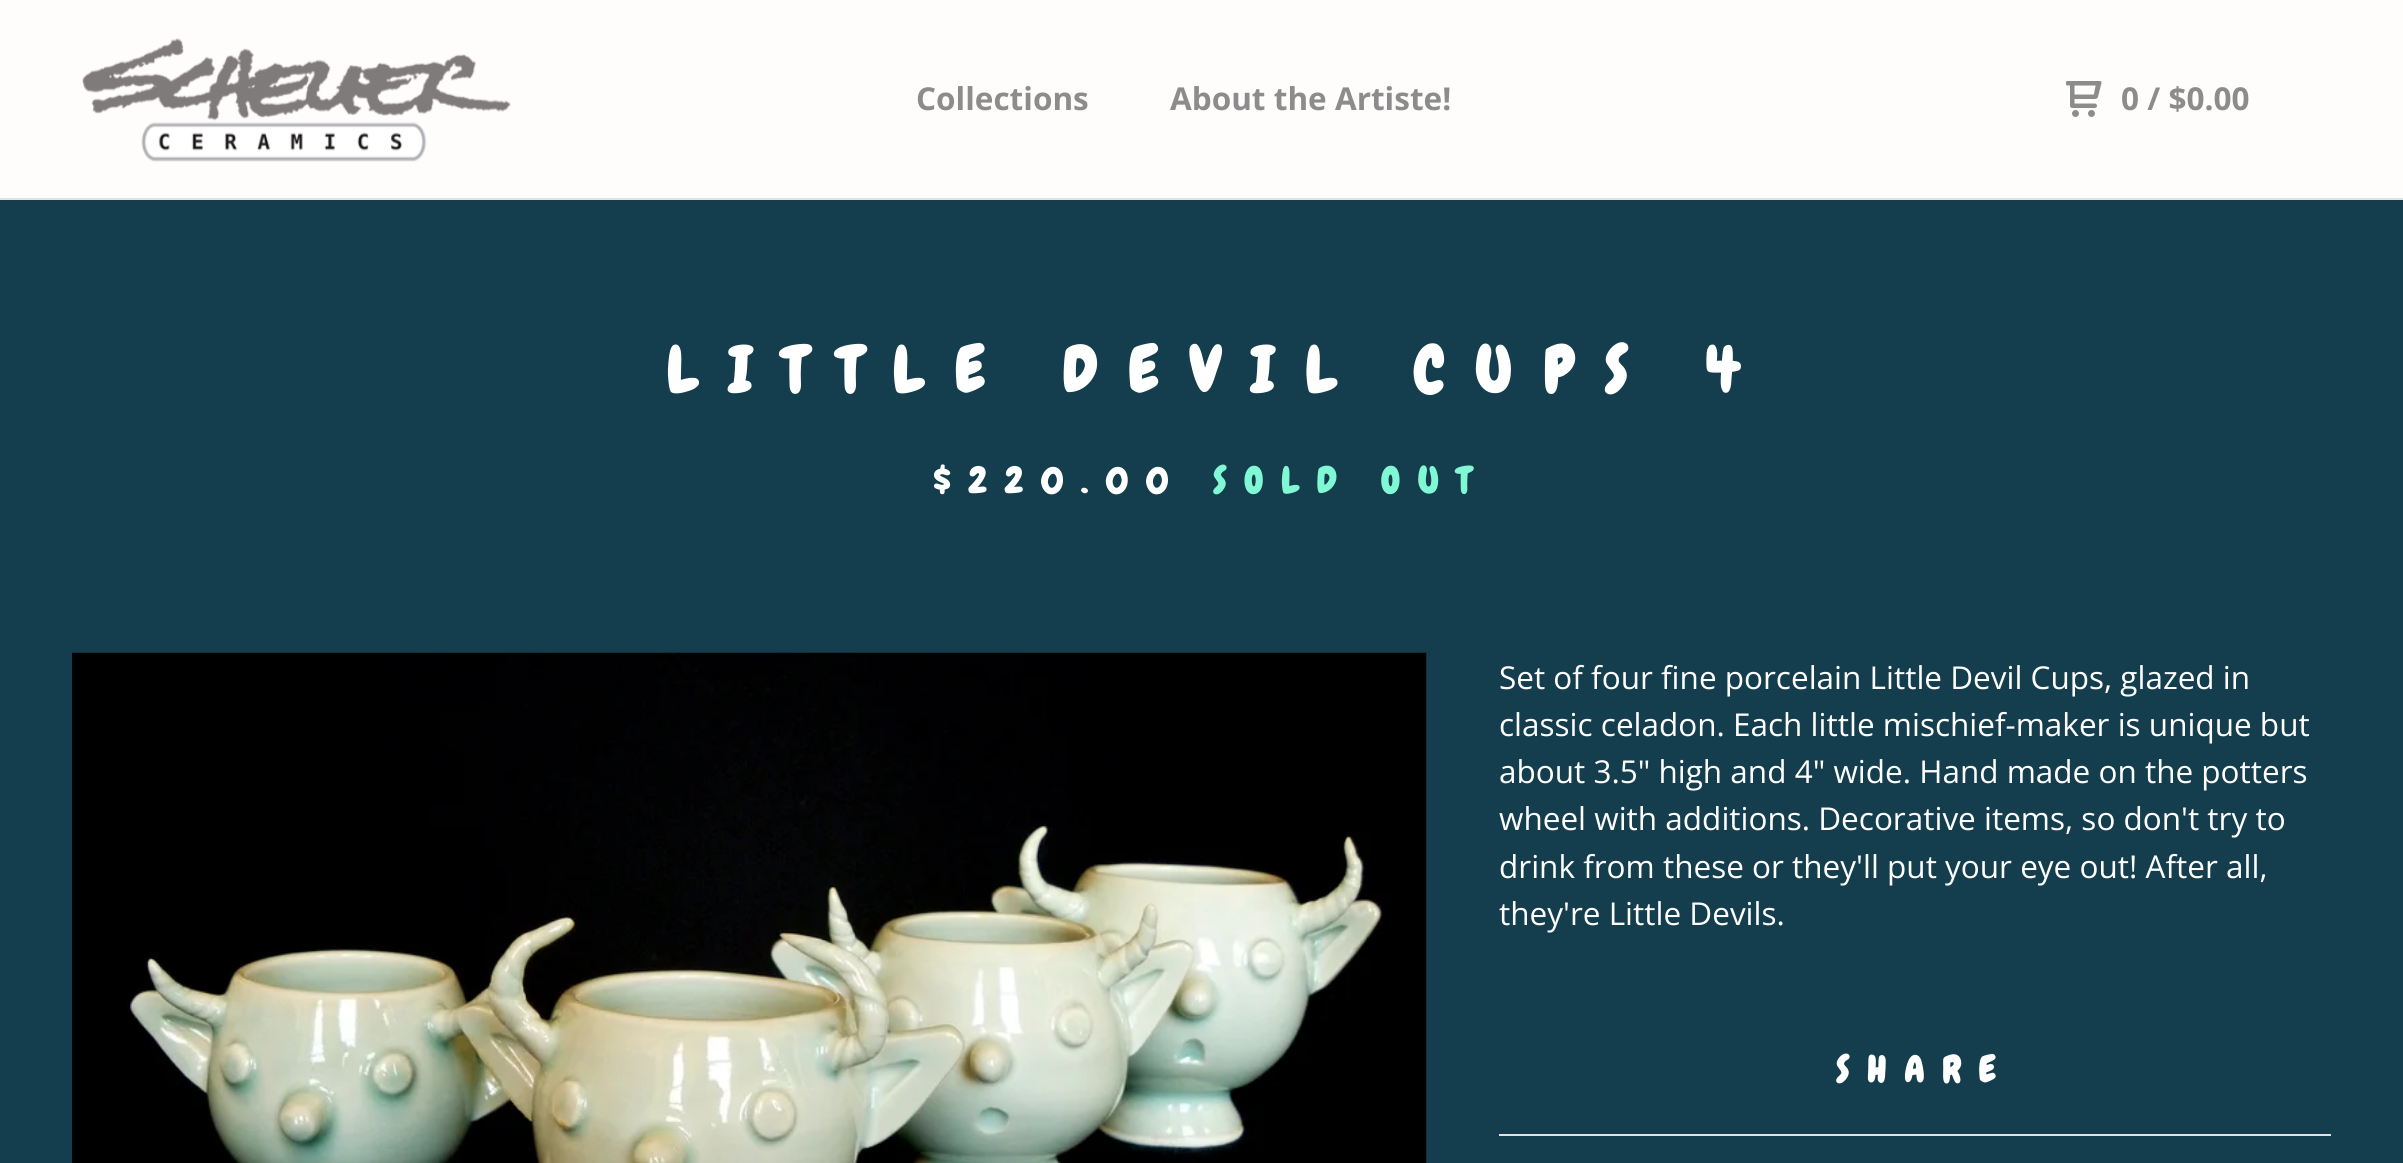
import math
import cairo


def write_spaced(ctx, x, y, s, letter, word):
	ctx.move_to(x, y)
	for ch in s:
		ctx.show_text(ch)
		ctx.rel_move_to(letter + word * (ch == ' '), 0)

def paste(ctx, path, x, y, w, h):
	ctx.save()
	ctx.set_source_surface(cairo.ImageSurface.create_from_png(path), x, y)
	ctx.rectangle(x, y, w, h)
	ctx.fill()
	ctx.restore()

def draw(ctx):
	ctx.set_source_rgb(0.082, 0.243, 0.302)
	ctx.paint()
	ctx.set_source_rgb(1, 0.988, 0.988)
	ctx.rectangle(0, 0, 2403, 198)
	ctx.fill()
	ctx.set_source_rgb(0.886, 0.886, 0.886)
	ctx.rectangle(0, 198, 2403, 2)
	ctx.fill()
	paste(ctx, 'media/1.png', 82, 38, 429, 124)
	ctx.select_font_face('Open Sans', cairo.FONT_SLANT_NORMAL, cairo.FONT_WEIGHT_BOLD)
	ctx.set_font_size(31.5)
	ctx.set_source_rgb(0.549, 0.549, 0.549)
	ctx.move_to(916, 110)
	ctx.show_text('Collections')
	ctx.move_to(1170, 110)
	ctx.show_text('About the Artiste!')
	paste(ctx, 'media/2.png', 2066, 81, 36, 36)
	ctx.move_to(2121, 110)
	ctx.show_text('0 / $0.00')
	ctx.select_font_face('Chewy', cairo.FONT_SLANT_NORMAL, cairo.FONT_WEIGHT_BOLD)
	ctx.set_font_size(63)
	ctx.set_source_rgb(1, 1, 1)
	write_spaced(ctx, 666, 392, 'LITTLE DEVIL CUPS 4', 31.5, 0)
	ctx.set_font_size(36)
	write_spaced(ctx, 933, 493, '$220.00', 18, 0)
	ctx.set_source_rgb(0.506, 0.969, 0.831)
	write_spaced(ctx, 1213, 493, 'SOLD OUT', 18, 0)
	paste(ctx, 'media/3.png', 72, 652, 1355, 511)
	ctx.select_font_face('Open Sans')
	ctx.set_font_size(31.5)
	ctx.set_source_rgb(1, 1, 1)
	for x, y, s in [
		(1499, 689, 'Set of four fine porcelain Little Devil Cups, glazed in'),
		(1499, 736, 'classic celadon. Each little mischief-maker is unique but'),
		(1499, 783, 'about 3.5" high and 4" wide. Hand made on the potters'),
		(1499, 830, 'wheel with additions. Decorative items, so don\'t try to'),
		(1499, 878, 'drink from these or they\'ll put your eye out! After all,'),
		(1499, 925, 'they\'re Little Devils.'),
	]:
		ctx.move_to(x, y)
		ctx.show_text(s)
	ctx.set_source_rgb(0.886, 0.886, 0.886)
	ctx.rectangle(1499, 1134, 832, 2)
	ctx.fill()
	ctx.select_font_face('Chewy', cairo.FONT_SLANT_NORMAL, cairo.FONT_WEIGHT_BOLD)
	ctx.set_font_size(36)
	ctx.set_source_rgb(1, 1, 1)
	write_spaced(ctx, 1836, 1082, 'SHARE', 18, 0)


surface = cairo.ImageSurface(cairo.FORMAT_RGB24, 2403, 1163)
ctx = cairo.Context(surface)
options = cairo.FontOptions()
options.set_hint_metrics(cairo.HINT_METRICS_OFF)
options.set_hint_style(cairo.HINT_STYLE_NONE)
ctx.set_font_options(options)
ctx.set_miter_limit(4)
draw(ctx)
surface.write_to_png('image.png')
